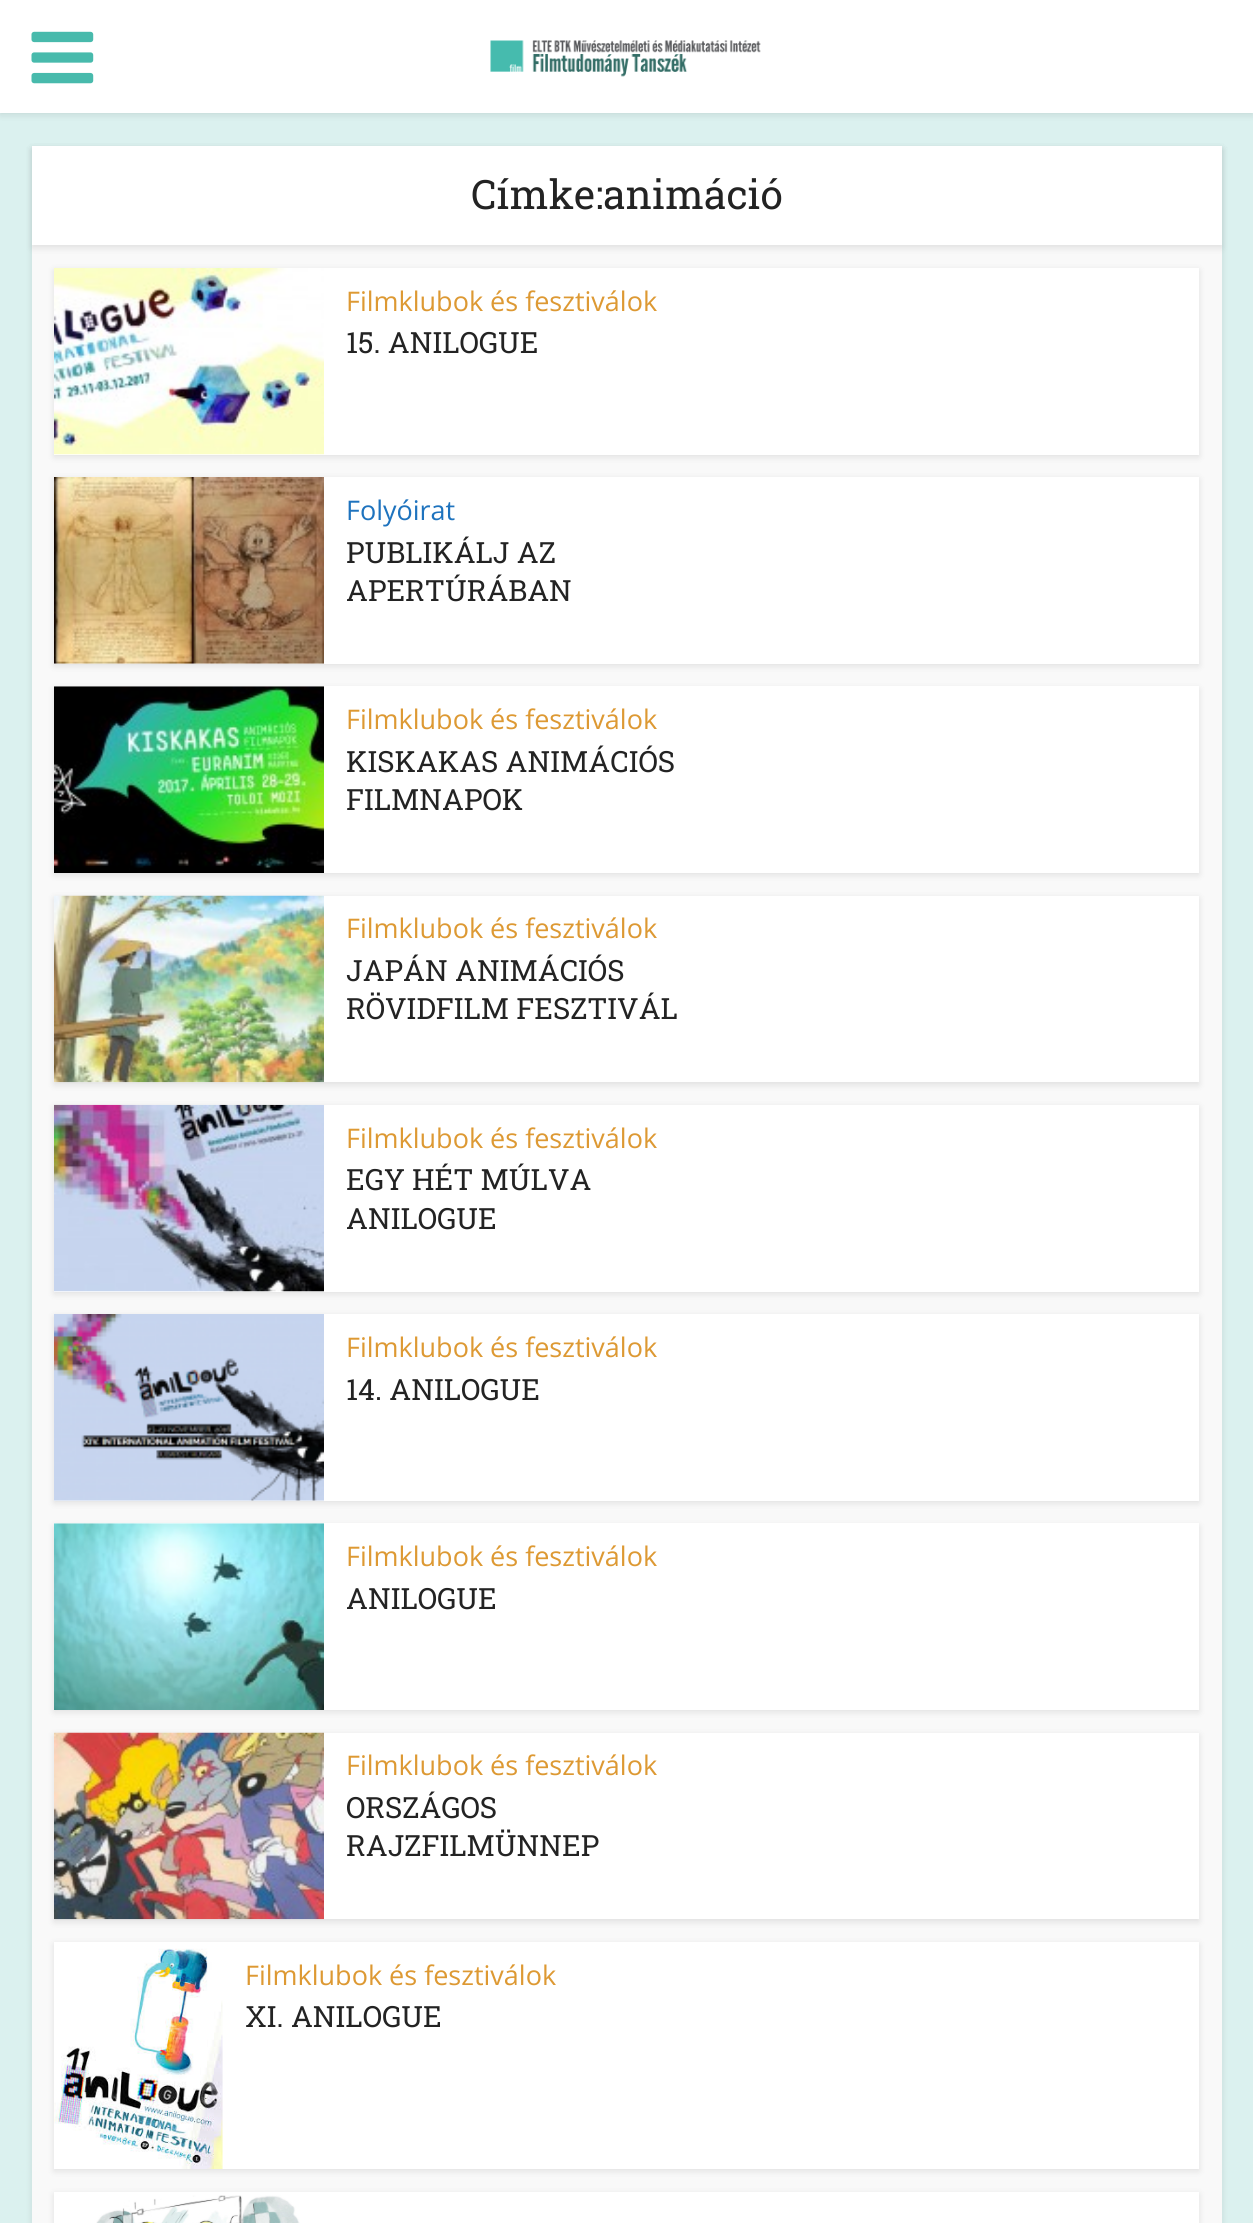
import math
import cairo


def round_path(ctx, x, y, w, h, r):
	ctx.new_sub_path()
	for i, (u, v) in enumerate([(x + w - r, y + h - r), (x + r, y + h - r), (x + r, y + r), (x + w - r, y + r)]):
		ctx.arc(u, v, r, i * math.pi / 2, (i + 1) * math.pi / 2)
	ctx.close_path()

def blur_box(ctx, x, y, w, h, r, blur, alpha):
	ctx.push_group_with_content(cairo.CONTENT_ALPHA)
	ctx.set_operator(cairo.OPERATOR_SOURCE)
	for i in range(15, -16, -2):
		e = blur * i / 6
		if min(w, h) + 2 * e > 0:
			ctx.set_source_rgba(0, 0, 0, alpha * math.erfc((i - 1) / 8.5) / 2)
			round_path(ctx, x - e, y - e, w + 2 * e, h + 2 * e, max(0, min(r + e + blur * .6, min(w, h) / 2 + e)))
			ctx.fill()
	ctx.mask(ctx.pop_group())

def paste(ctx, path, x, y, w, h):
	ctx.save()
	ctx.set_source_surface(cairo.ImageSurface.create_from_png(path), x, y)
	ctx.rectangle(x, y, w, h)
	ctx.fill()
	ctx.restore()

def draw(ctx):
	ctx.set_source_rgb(0.859, 0.945, 0.937)
	ctx.paint()
	ctx.set_source_rgb(0, 0, 0)
	blur_box(ctx, 0, 2, 1253, 113, 0, 3.5, 0.1)
	ctx.set_source_rgb(1, 1, 1)
	ctx.rectangle(0, 0, 1253, 113)
	ctx.fill()
	paste(ctx, 'media/1.png', 31, 31, 63, 53)
	paste(ctx, 'media/2.png', 490, 40, 271, 37)
	ctx.set_source_rgb(0, 0, 0)
	blur_box(ctx, 32, 149, 1190, 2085, 0, 3.5, 0.1)
	ctx.set_source_rgb(0.976, 0.976, 0.976)
	ctx.rectangle(32, 245, 1190, 1978)
	ctx.fill()
	ctx.set_source_rgb(0, 0, 0)
	blur_box(ctx, 32, 149, 1190, 99, 0, 3.5, 0.1)
	ctx.set_source_rgb(1, 1, 1)
	ctx.rectangle(32, 146, 1190, 99)
	ctx.fill()
	ctx.select_font_face('Roboto Slab')
	ctx.set_font_size(40.5)
	ctx.set_source_rgb(0.137, 0.137, 0.137)
	ctx.move_to(471, 209)
	ctx.show_text('Címke:animáció')
	ctx.set_source_rgb(0, 0, 0)
	blur_box(ctx, 54, 270, 1145, 187, 0, 3.5, 0.1)
	ctx.set_source_rgb(1, 1, 1)
	ctx.rectangle(54, 268, 1145, 187)
	ctx.fill()
	paste(ctx, 'media/3.png', 54, 268, 270, 187)
	ctx.select_font_face('Open Sans')
	ctx.set_font_size(27)
	ctx.set_source_rgb(0.867, 0.6, 0.2)
	ctx.move_to(346, 311)
	ctx.show_text('Filmklubok és fesztiválok')
	ctx.select_font_face('Roboto Slab')
	ctx.set_font_size(29.25)
	ctx.set_source_rgb(0.137, 0.137, 0.137)
	ctx.move_to(346, 353)
	ctx.show_text('15. ANILOGUE')
	ctx.set_source_rgb(0, 0, 0)
	blur_box(ctx, 54, 479, 1145, 187, 0, 3.5, 0.1)
	ctx.set_source_rgb(1, 1, 1)
	ctx.rectangle(54, 477, 1145, 187)
	ctx.fill()
	paste(ctx, 'media/4.png', 54, 477, 270, 187)
	ctx.select_font_face('Open Sans')
	ctx.set_font_size(27)
	ctx.set_source_rgb(0.118, 0.451, 0.745)
	ctx.move_to(346, 520)
	ctx.show_text('Folyóirat')
	ctx.select_font_face('Roboto Slab')
	ctx.set_font_size(29.25)
	ctx.set_source_rgb(0.137, 0.137, 0.137)
	ctx.move_to(346, 563)
	ctx.show_text('PUBLIKÁLJ AZ')
	ctx.move_to(346, 601)
	ctx.show_text('APERTÚRÁBAN')
	ctx.set_source_rgb(0, 0, 0)
	blur_box(ctx, 54, 689, 1145, 186, 0, 3.5, 0.1)
	ctx.set_source_rgb(1, 1, 1)
	ctx.rectangle(54, 686, 1145, 187)
	ctx.fill()
	paste(ctx, 'media/5.png', 54, 686, 270, 187)
	ctx.select_font_face('Open Sans')
	ctx.set_font_size(27)
	ctx.set_source_rgb(0.867, 0.6, 0.2)
	ctx.move_to(346, 729)
	ctx.show_text('Filmklubok és fesztiválok')
	ctx.select_font_face('Roboto Slab')
	ctx.set_font_size(29.25)
	ctx.set_source_rgb(0.137, 0.137, 0.137)
	ctx.move_to(346, 772)
	ctx.show_text('KISKAKAS ANIMÁCIÓS')
	ctx.move_to(346, 810)
	ctx.show_text('FILMNAPOK')
	ctx.set_source_rgb(0, 0, 0)
	blur_box(ctx, 54, 898, 1145, 187, 0, 3.5, 0.1)
	ctx.set_source_rgb(1, 1, 1)
	ctx.rectangle(324, 896, 875, 186)
	ctx.fill()
	paste(ctx, 'media/6.png', 54, 895, 270, 188)
	ctx.select_font_face('Open Sans')
	ctx.set_font_size(27)
	ctx.set_source_rgb(0.867, 0.6, 0.2)
	ctx.move_to(346, 938)
	ctx.show_text('Filmklubok és fesztiválok')
	ctx.select_font_face('Roboto Slab')
	ctx.set_font_size(29.25)
	ctx.set_source_rgb(0.137, 0.137, 0.137)
	ctx.move_to(346, 981)
	ctx.show_text('JAPÁN ANIMÁCIÓS')
	ctx.move_to(346, 1019)
	ctx.show_text('RÖVIDFILM FESZTIVÁL')
	ctx.set_source_rgb(0, 0, 0)
	blur_box(ctx, 54, 1107, 1145, 187, 0, 3.5, 0.1)
	ctx.set_source_rgb(1, 1, 1)
	ctx.rectangle(54, 1105, 1145, 187)
	ctx.fill()
	paste(ctx, 'media/7.png', 54, 1104, 270, 188)
	ctx.select_font_face('Open Sans')
	ctx.set_font_size(27)
	ctx.set_source_rgb(0.867, 0.6, 0.2)
	ctx.move_to(346, 1148)
	ctx.show_text('Filmklubok és fesztiválok')
	ctx.select_font_face('Roboto Slab')
	ctx.set_font_size(29.25)
	ctx.set_source_rgb(0.137, 0.137, 0.137)
	ctx.move_to(346, 1190)
	ctx.show_text('EGY HÉT MÚLVA')
	ctx.move_to(346, 1229)
	ctx.show_text('ANILOGUE')
	ctx.set_source_rgb(0, 0, 0)
	blur_box(ctx, 54, 1316, 1145, 187, 0, 3.5, 0.1)
	ctx.set_source_rgb(1, 1, 1)
	ctx.rectangle(54, 1314, 1145, 187)
	ctx.fill()
	paste(ctx, 'media/8.png', 54, 1314, 270, 187)
	ctx.select_font_face('Open Sans')
	ctx.set_font_size(27)
	ctx.set_source_rgb(0.867, 0.6, 0.2)
	ctx.move_to(346, 1357)
	ctx.show_text('Filmklubok és fesztiválok')
	ctx.select_font_face('Roboto Slab')
	ctx.set_font_size(29.25)
	ctx.set_source_rgb(0.137, 0.137, 0.137)
	ctx.move_to(346, 1400)
	ctx.show_text('14. ANILOGUE')
	ctx.set_source_rgb(0, 0, 0)
	blur_box(ctx, 54, 1526, 1145, 186, 0, 3.5, 0.1)
	ctx.set_source_rgb(1, 1, 1)
	ctx.rectangle(54, 1523, 1145, 187)
	ctx.fill()
	paste(ctx, 'media/9.png', 54, 1523, 270, 187)
	ctx.select_font_face('Open Sans')
	ctx.set_font_size(27)
	ctx.set_source_rgb(0.867, 0.6, 0.2)
	ctx.move_to(346, 1566)
	ctx.show_text('Filmklubok és fesztiválok')
	ctx.select_font_face('Roboto Slab')
	ctx.set_font_size(29.25)
	ctx.set_source_rgb(0.137, 0.137, 0.137)
	ctx.move_to(346, 1609)
	ctx.show_text('ANILOGUE')
	ctx.set_source_rgb(0, 0, 0)
	blur_box(ctx, 54, 1735, 1145, 187, 0, 3.5, 0.1)
	ctx.set_source_rgb(1, 1, 1)
	ctx.rectangle(324, 1733, 875, 186)
	ctx.fill()
	paste(ctx, 'media/10.png', 54, 1732, 270, 188)
	ctx.select_font_face('Open Sans')
	ctx.set_font_size(27)
	ctx.set_source_rgb(0.867, 0.6, 0.2)
	ctx.move_to(346, 1775)
	ctx.show_text('Filmklubok és fesztiválok')
	ctx.select_font_face('Roboto Slab')
	ctx.set_font_size(29.25)
	ctx.set_source_rgb(0.137, 0.137, 0.137)
	ctx.move_to(346, 1818)
	ctx.show_text('ORSZÁGOS')
	ctx.move_to(346, 1856)
	ctx.show_text('RAJZFILMÜNNEP')
	ctx.set_source_rgb(0, 0, 0)
	blur_box(ctx, 54, 1944, 1145, 227, 0, 3.5, 0.1)
	ctx.set_source_rgb(1, 1, 1)
	ctx.rectangle(54, 1942, 1145, 227)
	ctx.fill()
	paste(ctx, 'media/11.png', 54, 1948, 169, 221)
	ctx.select_font_face('Open Sans')
	ctx.set_font_size(27)
	ctx.set_source_rgb(0.867, 0.6, 0.2)
	ctx.move_to(245, 1985)
	ctx.show_text('Filmklubok és fesztiválok')
	ctx.select_font_face('Roboto Slab')
	ctx.set_font_size(29.25)
	ctx.set_source_rgb(0.137, 0.137, 0.137)
	ctx.move_to(245, 2027)
	ctx.show_text('XI. ANILOGUE')
	ctx.set_source_rgb(0, 0, 0)
	blur_box(ctx, 54, 2194, 1145, 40, 0, 3.5, 0.1)
	ctx.set_source_rgb(1, 1, 1)
	ctx.rectangle(54, 2192, 1145, 31)
	ctx.fill()
	paste(ctx, 'media/12.png', 96, 2195, 204, 28)


surface = cairo.ImageSurface(cairo.FORMAT_RGB24, 1253, 2223)
ctx = cairo.Context(surface)
options = cairo.FontOptions()
options.set_hint_metrics(cairo.HINT_METRICS_OFF)
options.set_hint_style(cairo.HINT_STYLE_NONE)
ctx.set_font_options(options)
ctx.set_miter_limit(4)
draw(ctx)
surface.write_to_png('image.png')
